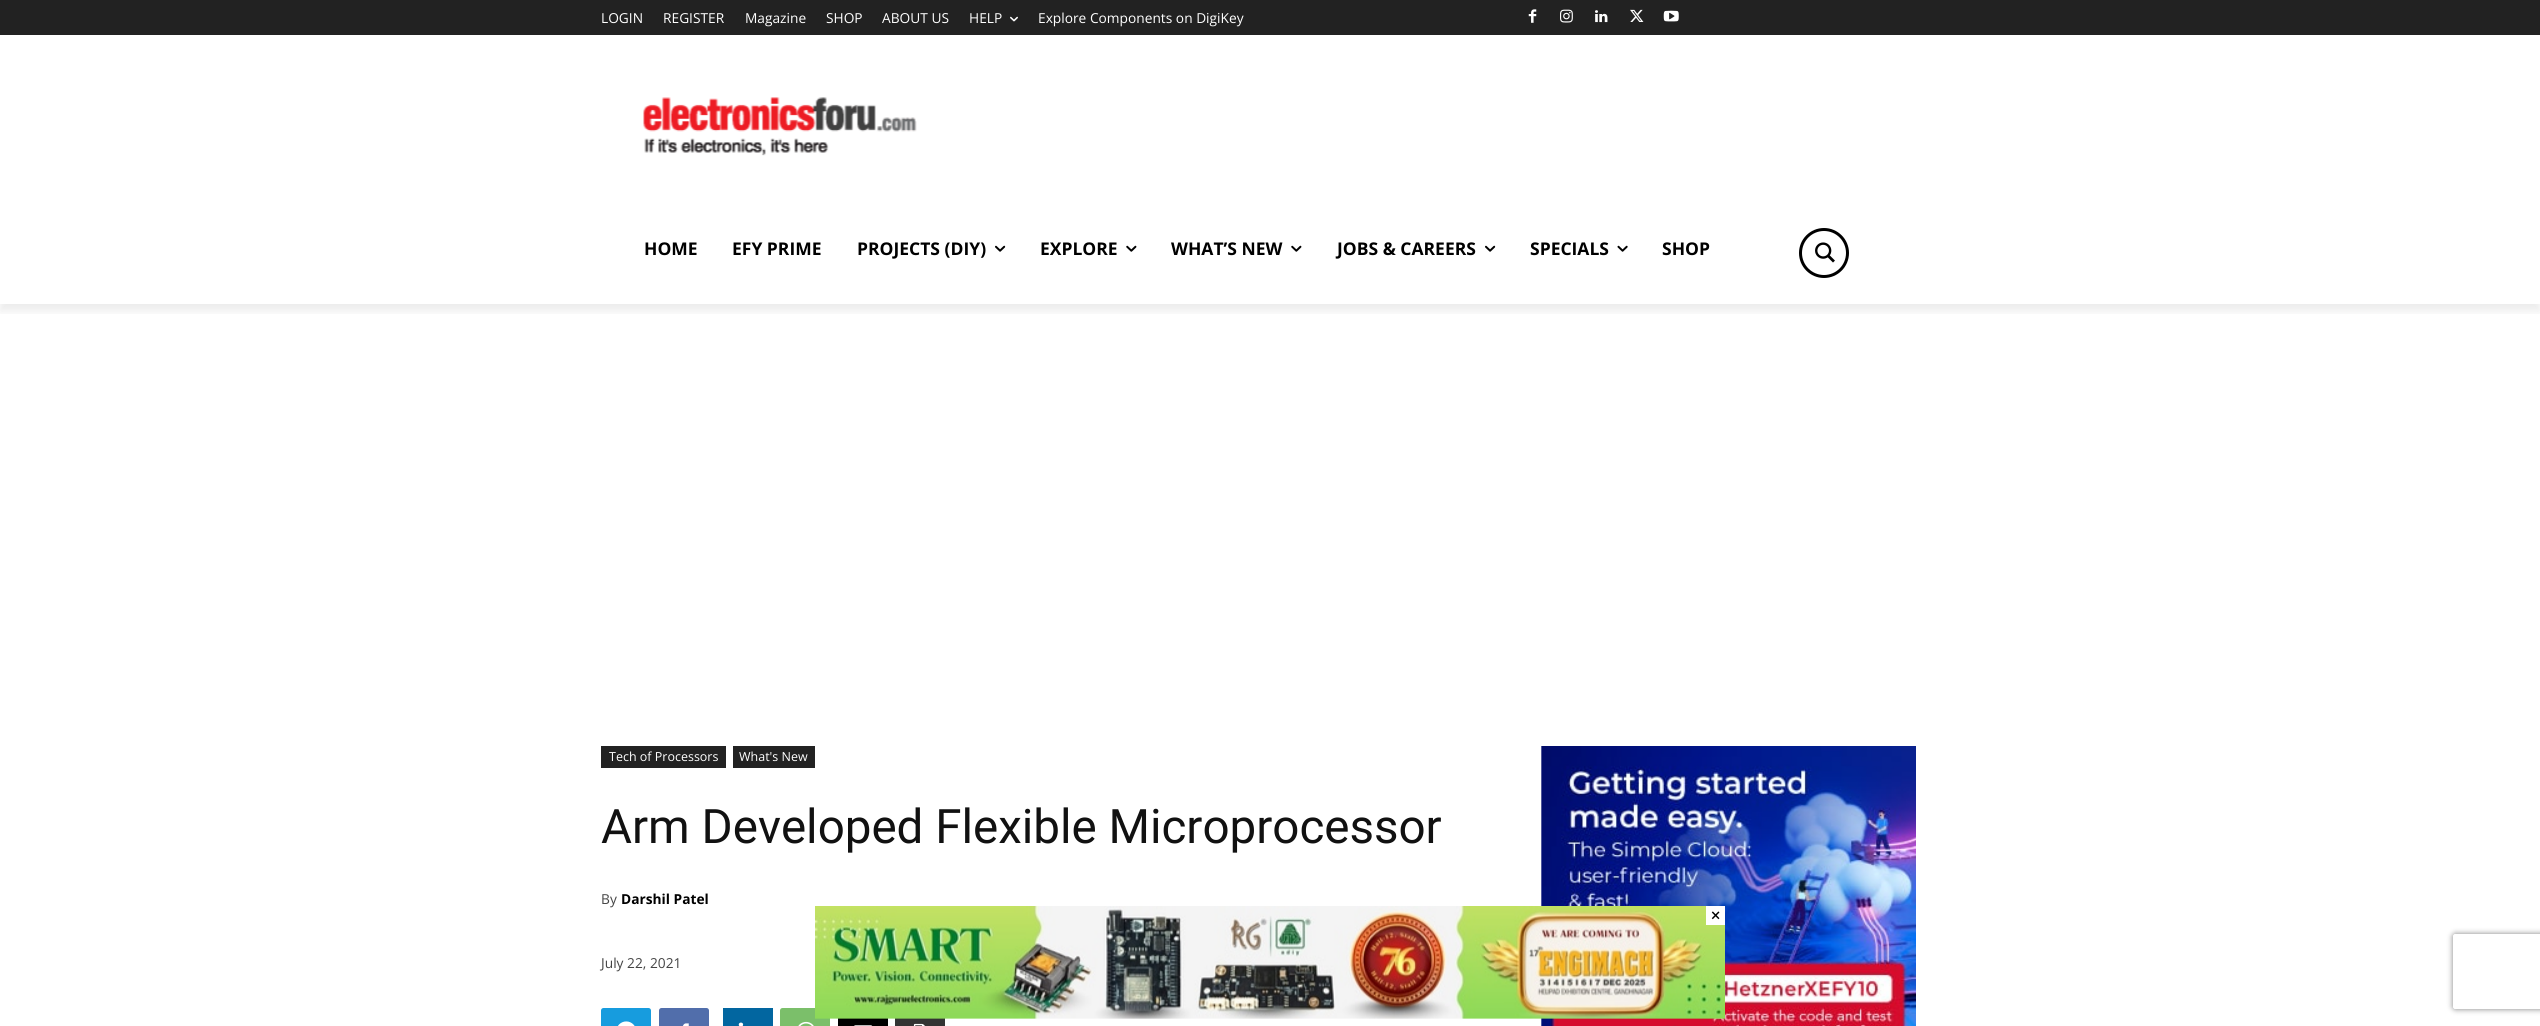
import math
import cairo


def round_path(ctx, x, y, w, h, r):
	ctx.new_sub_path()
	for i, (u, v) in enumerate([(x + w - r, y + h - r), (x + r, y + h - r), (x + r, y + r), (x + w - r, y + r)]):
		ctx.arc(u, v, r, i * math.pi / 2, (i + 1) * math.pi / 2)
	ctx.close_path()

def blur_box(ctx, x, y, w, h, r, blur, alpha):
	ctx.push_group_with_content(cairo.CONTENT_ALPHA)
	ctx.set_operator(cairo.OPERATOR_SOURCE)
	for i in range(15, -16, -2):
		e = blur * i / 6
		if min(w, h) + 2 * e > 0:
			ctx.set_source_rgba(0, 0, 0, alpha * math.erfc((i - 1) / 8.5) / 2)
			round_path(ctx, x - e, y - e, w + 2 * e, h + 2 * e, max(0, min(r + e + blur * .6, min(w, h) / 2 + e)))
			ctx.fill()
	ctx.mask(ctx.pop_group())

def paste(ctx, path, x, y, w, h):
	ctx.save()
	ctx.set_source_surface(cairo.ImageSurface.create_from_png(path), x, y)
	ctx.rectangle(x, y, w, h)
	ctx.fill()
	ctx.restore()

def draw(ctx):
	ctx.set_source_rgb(1, 1, 1)
	ctx.paint()
	ctx.set_source_rgb(0.133, 0.133, 0.133)
	ctx.rectangle(0, 0, 2540, 35)
	ctx.fill()
	paste(ctx, 'media/2.png', 1528, 9, 9, 14)
	paste(ctx, 'media/3.png', 1560, 9, 13, 14)
	paste(ctx, 'media/4.png', 1595, 10, 13, 13)
	paste(ctx, 'media/5.png', 1630, 9, 14, 13)
	paste(ctx, 'media/6.png', 1663, 10, 16, 12)
	paste(ctx, 'media/7.png', 643, 97, 274, 59)
	ctx.save()
	ctx.rectangle(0, 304, 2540, 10)
	ctx.clip()
	ctx.set_source_rgb(0, 0, 0)
	blur_box(ctx, 0, 8, 2540, 303, 0, 5, 0.08)
	ctx.restore()
	ctx.select_font_face('Open Sans')
	ctx.set_font_size(13.75)
	ctx.set_source_rgb(1, 1, 1)
	for x, y, s in [
		(601, 23, 'LOGIN'),
		(663, 23, 'REGISTER'),
		(745, 23, 'Magazine'),
		(826, 23, 'SHOP'),
		(882, 23, 'ABOUT US'),
		(969, 23, 'HELP'),
	]:
		ctx.move_to(x, y)
		ctx.show_text(s)
	paste(ctx, 'media/1.png', 1010, 16, 8, 6)
	ctx.move_to(1038, 23)
	ctx.show_text('Explore Components on DigiKey')
	ctx.select_font_face('Open Sans', cairo.FONT_SLANT_NORMAL, cairo.FONT_WEIGHT_BOLD)
	ctx.set_font_size(17.5)
	ctx.set_source_rgb(0, 0, 0)
	for x, y, s in [
		(644, 255, 'HOME'),
		(732, 255, 'EFY PRIME'),
		(857, 255, 'PROJECTS (DIY)'),
	]:
		ctx.move_to(x, y)
		ctx.show_text(s)
	paste(ctx, 'media/8.png', 995, 245, 11, 7)
	ctx.move_to(1040, 255)
	ctx.show_text('EXPLORE')
	paste(ctx, 'media/9.png', 1126, 245, 11, 7)
	ctx.move_to(1171, 255)
	ctx.show_text('WHAT’S NEW')
	paste(ctx, 'media/9.png', 1291, 245, 11, 7)
	ctx.move_to(1337, 255)
	ctx.show_text('JOBS & CAREERS')
	paste(ctx, 'media/8.png', 1485, 245, 11, 7)
	ctx.move_to(1530, 255)
	ctx.show_text('SPECIALS')
	paste(ctx, 'media/10.png', 1617, 245, 11, 7)
	ctx.move_to(1662, 255)
	ctx.show_text('SHOP')
	ctx.new_path()
	ctx.arc(1824, 253, 23.5, 0, 2 * math.pi)
	ctx.set_line_width(3)
	ctx.stroke()
	paste(ctx, 'media/11.png', 1815, 242, 20, 21)
	ctx.set_source_rgb(0.133, 0.133, 0.133)
	ctx.rectangle(601, 746, 125, 22)
	ctx.fill()
	ctx.select_font_face('Open Sans')
	ctx.set_font_size(12.5)
	ctx.set_source_rgb(1, 1, 1)
	ctx.move_to(609, 761)
	ctx.show_text('Tech of Processors')
	ctx.set_source_rgb(0.133, 0.133, 0.133)
	ctx.rectangle(733, 746, 82, 22)
	ctx.fill()
	ctx.set_source_rgb(1, 1, 1)
	ctx.move_to(739, 761)
	ctx.show_text('What\'s New')
	ctx.select_font_face('Roboto')
	ctx.set_font_size(47.5)
	ctx.set_source_rgb(0.067, 0.067, 0.067)
	ctx.move_to(601, 843)
	ctx.show_text('Arm Developed Flexible Microprocessor')
	ctx.select_font_face('Open Sans')
	ctx.set_font_size(13.75)
	ctx.set_source_rgb(0.267, 0.267, 0.267)
	ctx.move_to(601, 904)
	ctx.show_text('By')
	ctx.select_font_face('Open Sans', cairo.FONT_SLANT_NORMAL, cairo.FONT_WEIGHT_BOLD)
	ctx.set_source_rgb(0, 0, 0)
	ctx.move_to(621, 904)
	ctx.show_text('Darshil Patel')
	ctx.select_font_face('Open Sans')
	ctx.set_source_rgb(0.267, 0.267, 0.267)
	ctx.move_to(601, 968)
	ctx.show_text('July 22, 2021')
	ctx.set_source_rgb(0.09, 0.612, 0.871)
	round_path(ctx, 601, 1008, 50, 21, 2.5)
	ctx.fill()
	paste(ctx, 'media/12.png', 618, 1021, 17, 5)
	ctx.set_source_rgb(0.318, 0.431, 0.671)
	round_path(ctx, 659, 1008, 50, 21, 2.5)
	ctx.fill()
	paste(ctx, 'media/13.png', 682, 1023, 7, 3)
	ctx.set_source_rgb(0, 0.4, 0.6)
	ctx.rectangle(723, 1008, 50, 3)
	ctx.fill()
	ctx.set_source_rgb(0.008, 0.4, 0.627)
	round_path(ctx, 723, 1008, 50, 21, 2.5)
	ctx.fill()
	paste(ctx, 'media/14.png', 738, 1022, 6, 4)
	ctx.set_source_rgb(0.482, 0.749, 0.416)
	round_path(ctx, 780, 1008, 50, 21, 2.5)
	ctx.fill()
	paste(ctx, 'media/15.png', 798, 1021, 16, 5)
	ctx.set_source_rgb(0, 0, 0)
	ctx.rectangle(838, 1018, 50, 8)
	ctx.fill()
	paste(ctx, 'media/16.png', 854, 1025, 19, 1)
	ctx.set_source_rgb(0.2, 0.2, 0.2)
	ctx.rectangle(895, 1018, 50, 8)
	ctx.fill()
	paste(ctx, 'media/17.png', 913, 1023, 12, 3)
	paste(ctx, 'media/18.png', 1541, 746, 375, 280)
	paste(ctx, 'media/19.png', 815, 906, 910, 113)
	ctx.set_source_rgb(1, 1, 1)
	ctx.rectangle(1706, 906, 19, 19)
	ctx.fill()
	ctx.select_font_face('Roboto')
	ctx.set_font_size(17.5)
	ctx.set_source_rgb(0, 0, 0)
	ctx.move_to(1711, 921)
	ctx.show_text('×')
	ctx.save()
	ctx.set_fill_rule(cairo.FILL_RULE_EVEN_ODD)
	ctx.new_path()
	ctx.move_to(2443, 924)
	ctx.line_to(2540, 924)
	ctx.line_to(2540, 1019)
	ctx.line_to(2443, 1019)
	ctx.close_path()
	ctx.move_to(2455.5, 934)
	ctx.line_to(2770.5, 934)
	ctx.curve_to(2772, 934, 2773, 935, 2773, 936.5)
	ctx.line_to(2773, 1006.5)
	ctx.curve_to(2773, 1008, 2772, 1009, 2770.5, 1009)
	ctx.line_to(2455.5, 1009)
	ctx.curve_to(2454, 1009, 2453, 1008, 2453, 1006.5)
	ctx.line_to(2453, 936.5)
	ctx.curve_to(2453, 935, 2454, 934, 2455.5, 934)
	ctx.close_path()
	ctx.clip()
	ctx.set_source_rgb(0.502, 0.502, 0.502)
	blur_box(ctx, 2453, 934, 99, 75, 2.5, 3, 1)
	ctx.restore()


surface = cairo.ImageSurface(cairo.FORMAT_RGB24, 2540, 1026)
ctx = cairo.Context(surface)
options = cairo.FontOptions()
options.set_hint_metrics(cairo.HINT_METRICS_OFF)
options.set_hint_style(cairo.HINT_STYLE_NONE)
ctx.set_font_options(options)
ctx.set_miter_limit(4)
draw(ctx)
surface.write_to_png('image.png')
